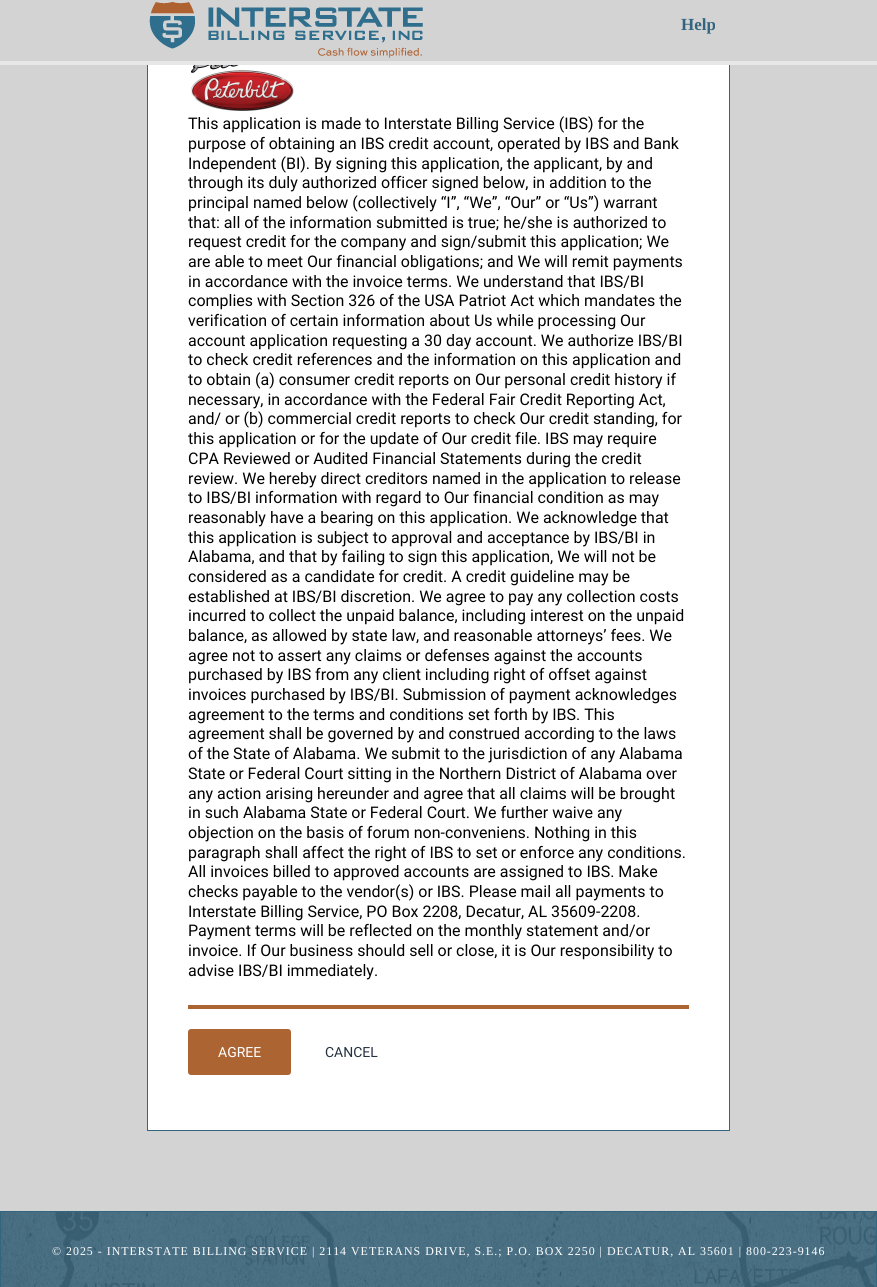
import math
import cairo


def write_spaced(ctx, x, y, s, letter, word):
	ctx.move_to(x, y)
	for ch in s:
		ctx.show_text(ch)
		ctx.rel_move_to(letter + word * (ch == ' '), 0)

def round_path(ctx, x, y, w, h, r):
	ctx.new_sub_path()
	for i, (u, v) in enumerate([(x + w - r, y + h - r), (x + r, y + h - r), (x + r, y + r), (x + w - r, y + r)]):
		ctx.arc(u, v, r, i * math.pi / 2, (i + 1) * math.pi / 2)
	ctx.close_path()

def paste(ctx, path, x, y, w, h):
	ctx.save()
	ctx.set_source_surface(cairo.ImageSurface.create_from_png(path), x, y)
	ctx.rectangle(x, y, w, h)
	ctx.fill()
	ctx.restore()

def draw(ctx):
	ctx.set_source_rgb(0.827, 0.827, 0.827)
	ctx.paint()
	ctx.set_source_rgb(1, 1, 1)
	ctx.rectangle(148, 65, 581, 1065)
	ctx.fill()
	ctx.rectangle(147.5, -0.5, 582, 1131)
	ctx.set_source_rgb(0.204, 0.396, 0.498)
	ctx.set_line_width(1)
	ctx.stroke()
	ctx.set_source_rgb(0.827, 0.827, 0.827)
	ctx.rectangle(147, 0, 583, 61)
	ctx.fill()
	ctx.set_source_rgb(0.906, 0.906, 0.906)
	ctx.rectangle(0, 61, 877, 4)
	ctx.fill()
	paste(ctx, 'media/1.png', 149, 2, 274, 56)
	ctx.select_font_face('Liberation Serif', cairo.FONT_SLANT_NORMAL, cairo.FONT_WEIGHT_BOLD)
	ctx.set_font_size(17)
	ctx.set_source_rgb(0.204, 0.396, 0.498)
	ctx.move_to(681, 30)
	ctx.show_text('Help')
	paste(ctx, 'media/2.png', 190, 65, 105, 46)
	ctx.select_font_face('Roboto')
	ctx.set_font_size(16)
	ctx.set_source_rgb(0, 0, 0)
	for x, y, s in [
		(188, 129, 'This application is made to Interstate Billing Service (IBS) for the'),
		(188, 149, 'purpose of obtaining an IBS credit account, operated by IBS and Bank'),
		(188, 169, 'Independent (BI). By signing this application, the applicant, by and'),
		(188, 188, 'through its duly authorized officer signed below, in addition to the'),
		(188, 208, 'principal named below (collectively “I”, “We”, “Our” or “Us”) warrant'),
		(188, 228, 'that: all of the information submitted is true; he/she is authorized to'),
		(188, 247, 'request credit for the company and sign/submit this application; We'),
		(188, 267, 'are able to meet Our financial obligations; and We will remit payments'),
		(188, 287, 'in accordance with the invoice terms. We understand that IBS/BI'),
		(188, 306, 'complies with Section 326 of the USA Patriot Act which mandates the'),
		(188, 326, 'verification of certain information about Us while processing Our'),
		(188, 346, 'account application requesting a 30 day account. We authorize IBS/BI'),
		(188, 365, 'to check credit references and the information on this application and'),
		(188, 385, 'to obtain (a) consumer credit reports on Our personal credit history if'),
		(188, 405, 'necessary, in accordance with the Federal Fair Credit Reporting Act,'),
		(188, 424, 'and/ or (b) commercial credit reports to check Our credit standing, for'),
		(188, 444, 'this application or for the update of Our credit file. IBS may require'),
		(188, 464, 'CPA Reviewed or Audited Financial Statements during the credit'),
		(188, 484, 'review. We hereby direct creditors named in the application to release'),
		(188, 503, 'to IBS/BI information with regard to Our financial condition as may'),
		(188, 523, 'reasonably have a bearing on this application. We acknowledge that'),
		(188, 543, 'this application is subject to approval and acceptance by IBS/BI in'),
		(188, 562, 'Alabama, and that by failing to sign this application, We will not be'),
		(188, 582, 'considered as a candidate for credit. A credit guideline may be'),
		(188, 602, 'established at IBS/BI discretion. We agree to pay any collection costs'),
		(188, 621, 'incurred to collect the unpaid balance, including interest on the unpaid'),
		(188, 641, 'balance, as allowed by state law, and reasonable attorneys’ fees. We'),
		(188, 661, 'agree not to assert any claims or defenses against the accounts'),
		(188, 680, 'purchased by IBS from any client including right of offset against'),
		(188, 700, 'invoices purchased by IBS/BI. Submission of payment acknowledges'),
		(188, 720, 'agreement to the terms and conditions set forth by IBS. This'),
		(188, 739, 'agreement shall be governed by and construed according to the laws'),
		(188, 759, 'of the State of Alabama. We submit to the jurisdiction of any Alabama'),
		(188, 779, 'State or Federal Court sitting in the Northern District of Alabama over'),
		(188, 799, 'any action arising hereunder and agree that all claims will be brought'),
		(188, 818, 'in such Alabama State or Federal Court. We further waive any'),
		(188, 838, 'objection on the basis of forum non-conveniens. Nothing in this'),
		(188, 858, 'paragraph shall affect the right of IBS to set or enforce any conditions.'),
		(188, 877, 'All invoices billed to approved accounts are assigned to IBS. Make'),
		(188, 897, 'checks payable to the vendor(s) or IBS. Please mail all payments to'),
		(188, 917, 'Interstate Billing Service, PO Box 2208, Decatur, AL 35609-2208.'),
		(188, 936, 'Payment terms will be reflected on the monthly statement and/or'),
		(188, 956, 'invoice. If Our business should sell or close, it is Our responsibility to'),
		(188, 976, 'advise IBS/BI immediately.'),
	]:
		ctx.move_to(x, y)
		ctx.show_text(s)
	ctx.set_source_rgb(0.678, 0.392, 0.2)
	ctx.rectangle(188, 1005, 501, 4)
	ctx.fill()
	round_path(ctx, 188, 1029, 103, 46, 3)
	ctx.fill()
	ctx.set_font_size(14)
	ctx.set_source_rgb(1, 1, 1)
	ctx.move_to(218, 1057)
	ctx.show_text('AGREE')
	ctx.set_source_rgb(0.141, 0.192, 0.251)
	ctx.move_to(325, 1057)
	ctx.show_text('CANCEL')
	paste(ctx, 'media/3.png', 1, 1212, 875, 75)
	ctx.rectangle(0.5, 1211.5, 876, 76)
	ctx.set_source_rgb(0.204, 0.396, 0.498)
	ctx.stroke()
	ctx.select_font_face('Liberation Serif')
	ctx.set_font_size(11.9)
	ctx.set_source_rgb(1, 1, 1)
	write_spaced(ctx, 52, 1255, '© 2025 - INTERSTATE BILLING SERVICE | 2114 VETERANS DRIVE, S.E.; P.O. BOX 2250 | DECATUR, AL 35601 | 800-223-9146', 1, 0)


surface = cairo.ImageSurface(cairo.FORMAT_RGB24, 877, 1287)
ctx = cairo.Context(surface)
options = cairo.FontOptions()
options.set_hint_metrics(cairo.HINT_METRICS_OFF)
options.set_hint_style(cairo.HINT_STYLE_NONE)
ctx.set_font_options(options)
ctx.set_miter_limit(4)
draw(ctx)
surface.write_to_png('image.png')
